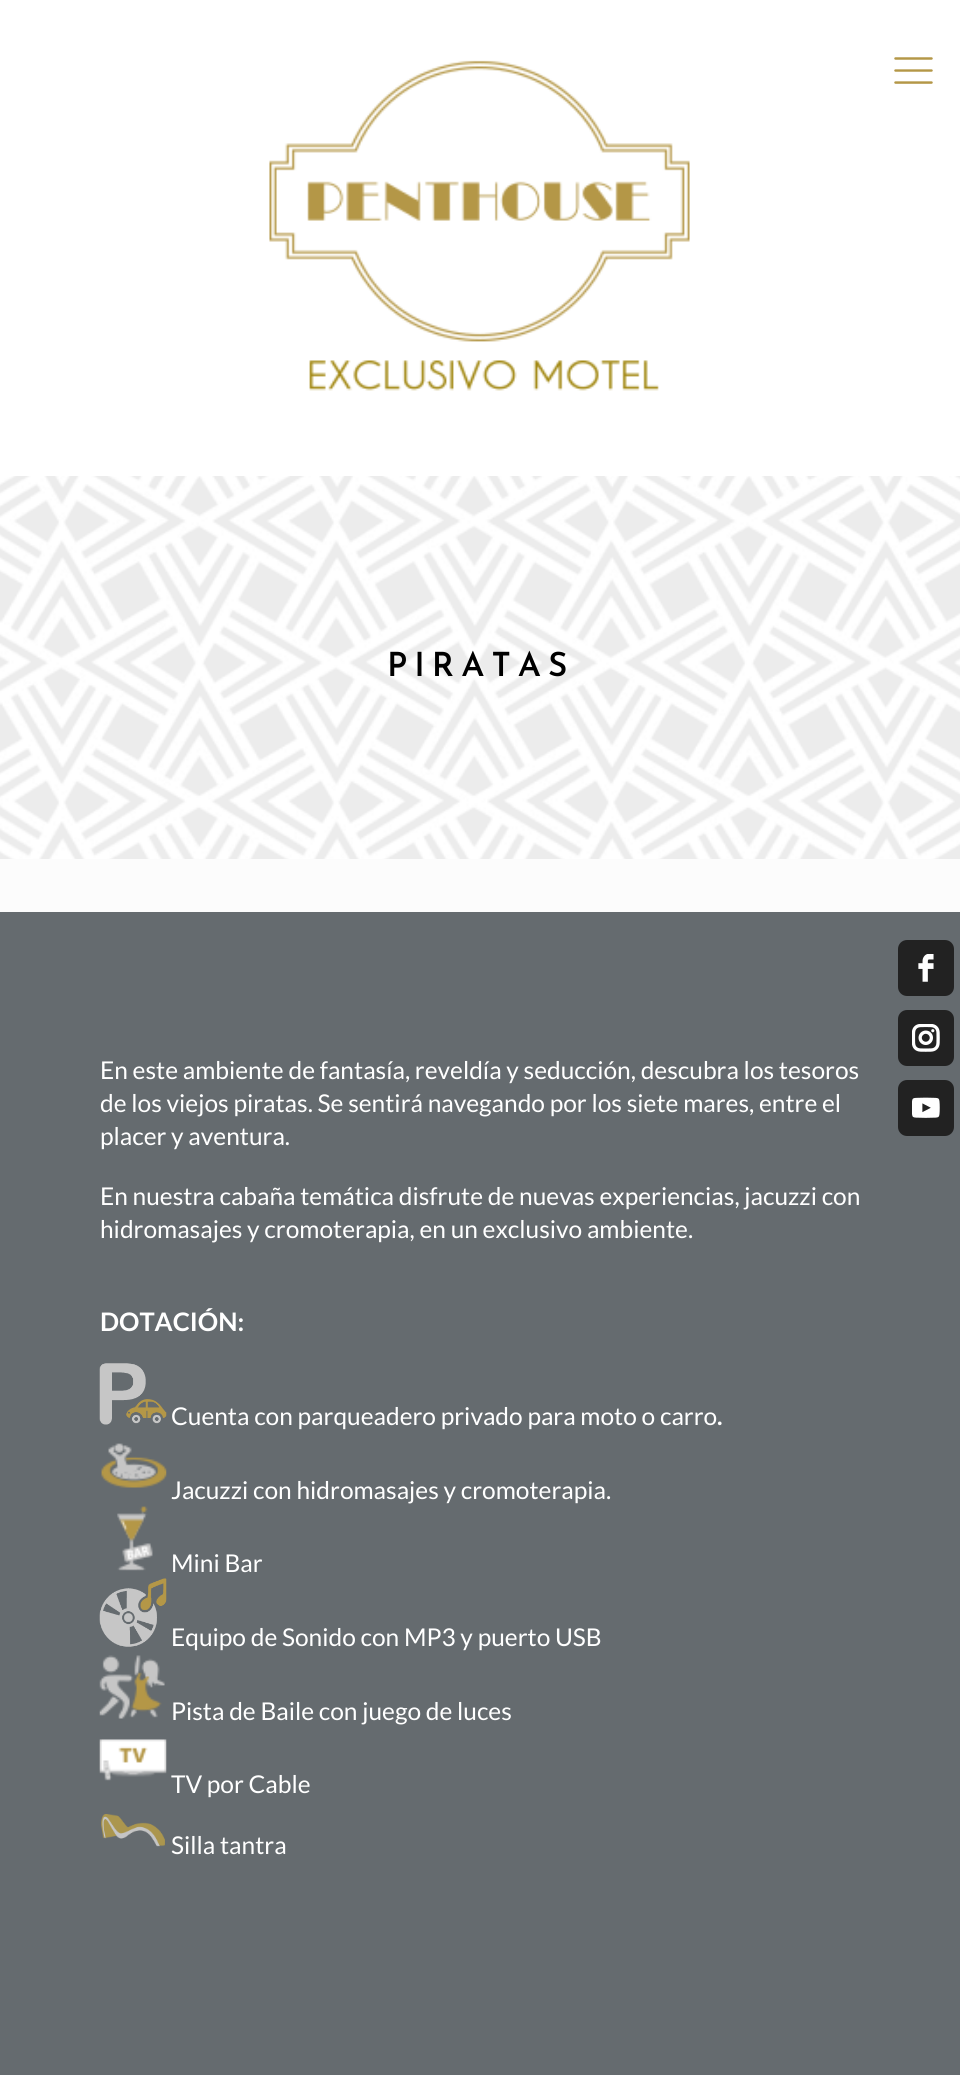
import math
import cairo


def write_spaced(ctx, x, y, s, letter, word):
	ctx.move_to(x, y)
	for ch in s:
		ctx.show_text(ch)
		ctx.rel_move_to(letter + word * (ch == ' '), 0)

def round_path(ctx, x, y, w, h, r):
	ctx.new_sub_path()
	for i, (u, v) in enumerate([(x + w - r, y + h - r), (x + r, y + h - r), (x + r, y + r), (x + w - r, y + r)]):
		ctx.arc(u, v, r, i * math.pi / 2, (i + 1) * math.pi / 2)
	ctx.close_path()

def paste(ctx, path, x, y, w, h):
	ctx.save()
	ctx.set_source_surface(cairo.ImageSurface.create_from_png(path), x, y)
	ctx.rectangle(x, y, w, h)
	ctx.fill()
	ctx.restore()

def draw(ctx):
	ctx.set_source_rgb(1, 1, 1)
	ctx.paint()
	paste(ctx, 'media/1.png', 0, 476, 960, 383)
	paste(ctx, 'media/2.png', 269, 60, 421, 331)
	paste(ctx, 'media/3.png', 894, 57, 39, 27)
	ctx.select_font_face('Josefin Sans SemiBold')
	ctx.set_font_size(33.25)
	ctx.set_source_rgb(0, 0, 0)
	write_spaced(ctx, 387, 676, 'PIRATAS', 7, 0)
	ctx.set_source_rgb(0.396, 0.42, 0.435)
	ctx.rectangle(0, 912, 960, 1163)
	ctx.fill()
	ctx.set_source_rgb(0.133, 0.133, 0.133)
	round_path(ctx, 898, 940, 56, 56, 9)
	ctx.fill()
	paste(ctx, 'media/4.png', 918, 954, 16, 28)
	round_path(ctx, 898, 1010, 56, 56, 9)
	ctx.fill()
	paste(ctx, 'media/5.png', 912, 1024, 28, 28)
	round_path(ctx, 898, 1080, 56, 56, 9)
	ctx.fill()
	paste(ctx, 'media/6.png', 912, 1097, 28, 21)
	ctx.set_source_rgb(0.988, 0.988, 0.988)
	ctx.rectangle(0, 859, 960, 53)
	ctx.fill()
	ctx.select_font_face('Lato')
	ctx.set_font_size(24.5)
	ctx.set_source_rgb(1, 1, 1)
	for x, y, s in [
		(100, 1079, 'En este ambiente de fantasía, reveldía y seducción, descubra los tesoros'),
		(100, 1112, 'de los viejos piratas. Se sentirá navegando por los siete mares, entre el'),
		(100, 1145, 'placer y aventura.'),
		(100, 1205, 'En nuestra cabaña temática disfrute de nuevas experiencias, jacuzzi con'),
		(100, 1238, 'hidromasajes y cromoterapia, en un exclusivo ambiente.'),
	]:
		ctx.move_to(x, y)
		ctx.show_text(s)
	ctx.select_font_face('Lato', cairo.FONT_SLANT_NORMAL, cairo.FONT_WEIGHT_BOLD)
	ctx.set_font_size(25.5)
	ctx.move_to(100, 1331)
	ctx.show_text('DOTACIÓN:')
	paste(ctx, 'media/7.png', 99, 1363, 68, 62)
	ctx.select_font_face('Lato')
	ctx.set_font_size(24.5)
	ctx.move_to(171, 1425)
	ctx.show_text('Cuenta con parqueadero privado para moto o carro')
	ctx.select_font_face('Lato', cairo.FONT_SLANT_NORMAL, cairo.FONT_WEIGHT_BOLD)
	ctx.move_to(717, 1425)
	ctx.show_text('.')
	paste(ctx, 'media/8.png', 101, 1443, 66, 45)
	ctx.select_font_face('Lato')
	ctx.move_to(171, 1499)
	ctx.show_text('Jacuzzi con hidromasajes y cromoterapia.')
	paste(ctx, 'media/9.png', 117, 1506, 36, 65)
	ctx.move_to(171, 1572)
	ctx.show_text('Mini Bar')
	paste(ctx, 'media/10.png', 99, 1578, 68, 69)
	ctx.move_to(171, 1646)
	ctx.show_text('Equipo de Sonido con MP3 y puerto USB')
	paste(ctx, 'media/11.png', 99, 1655, 66, 64)
	ctx.move_to(171, 1720)
	ctx.show_text('Pista de Baile con juego de luces')
	paste(ctx, 'media/12.png', 99, 1739, 68, 42)
	ctx.move_to(171, 1793)
	ctx.show_text('TV por Cable')
	paste(ctx, 'media/13.png', 101, 1814, 64, 33)
	ctx.move_to(171, 1854)
	ctx.show_text('Silla tantra')


surface = cairo.ImageSurface(cairo.FORMAT_RGB24, 960, 2075)
ctx = cairo.Context(surface)
options = cairo.FontOptions()
options.set_hint_metrics(cairo.HINT_METRICS_OFF)
options.set_hint_style(cairo.HINT_STYLE_NONE)
ctx.set_font_options(options)
ctx.set_miter_limit(4)
draw(ctx)
surface.write_to_png('image.png')
